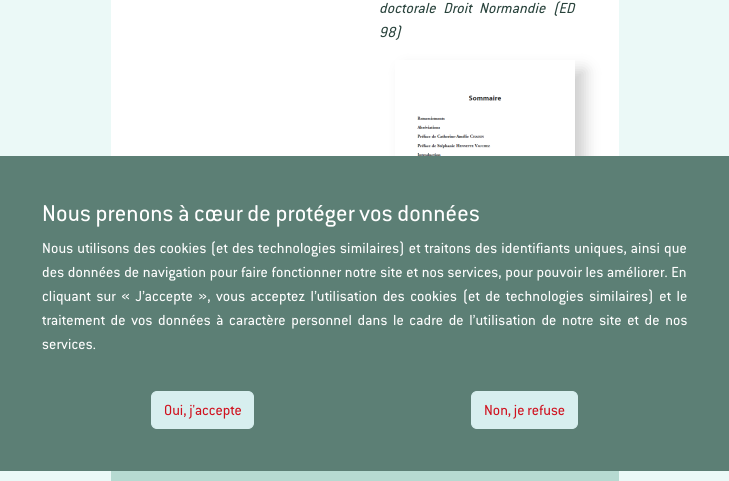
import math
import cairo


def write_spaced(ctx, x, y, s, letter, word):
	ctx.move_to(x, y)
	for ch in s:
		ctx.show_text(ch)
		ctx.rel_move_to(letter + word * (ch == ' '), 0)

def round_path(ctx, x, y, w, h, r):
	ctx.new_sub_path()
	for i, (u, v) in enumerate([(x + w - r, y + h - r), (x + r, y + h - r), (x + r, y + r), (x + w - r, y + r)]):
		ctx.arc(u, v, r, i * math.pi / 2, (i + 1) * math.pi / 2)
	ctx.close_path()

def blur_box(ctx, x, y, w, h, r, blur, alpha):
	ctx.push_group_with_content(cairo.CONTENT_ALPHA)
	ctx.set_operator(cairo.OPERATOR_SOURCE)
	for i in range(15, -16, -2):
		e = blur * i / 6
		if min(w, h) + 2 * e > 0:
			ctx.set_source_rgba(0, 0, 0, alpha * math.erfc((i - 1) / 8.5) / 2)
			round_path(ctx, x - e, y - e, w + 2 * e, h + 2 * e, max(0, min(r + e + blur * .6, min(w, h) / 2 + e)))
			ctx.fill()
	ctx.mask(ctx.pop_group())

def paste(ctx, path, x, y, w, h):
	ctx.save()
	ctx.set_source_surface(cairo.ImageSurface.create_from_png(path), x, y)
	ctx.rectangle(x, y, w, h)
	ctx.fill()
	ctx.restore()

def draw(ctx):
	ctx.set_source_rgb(0.918, 0.973, 0.965)
	ctx.paint()
	ctx.set_source_rgb(1, 1, 1)
	ctx.rectangle(111, 0, 508, 156)
	ctx.fill()
	ctx.select_font_face('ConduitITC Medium', cairo.FONT_SLANT_ITALIC)
	ctx.set_font_size(16)
	ctx.set_source_rgb(0.157, 0.259, 0.231)
	write_spaced(ctx, 379, 13, 'doctorale Droit Normandie (ED', 0.16, 4.5)
	write_spaced(ctx, 379, 37, '98)', 0.16, 0)
	ctx.save()
	ctx.set_fill_rule(cairo.FILL_RULE_EVEN_ODD)
	ctx.new_path()
	ctx.move_to(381, 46)
	ctx.line_to(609, 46)
	ctx.line_to(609, 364)
	ctx.line_to(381, 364)
	ctx.close_path()
	ctx.move_to(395, 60)
	ctx.line_to(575, 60)
	ctx.line_to(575, 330)
	ctx.line_to(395, 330)
	ctx.close_path()
	ctx.clip()
	ctx.set_source_rgb(0.812, 0.812, 0.812)
	blur_box(ctx, 405, 70, 180, 270, 0, 7.5, 1)
	ctx.restore()
	paste(ctx, 'media/1.png', 417, 95, 136, 61)
	ctx.set_source_rgb(0.714, 0.855, 0.82)
	ctx.rectangle(111, 471, 508, 10)
	ctx.fill()
	ctx.set_source_rgb(0.361, 0.498, 0.459)
	ctx.rectangle(0, 156, 729, 315)
	ctx.fill()
	ctx.select_font_face('ConduitITC Medium')
	ctx.set_font_size(25.2)
	ctx.set_source_rgb(1, 1, 1)
	write_spaced(ctx, 42, 221, 'Nous prenons à cœur de protéger vos données', 0.16, 0)
	ctx.set_font_size(16)
	write_spaced(ctx, 42, 253, 'Nous utilisons des cookies (et des technologies similaires) et traitons des identifiants uniques, ainsi que', 0.16, 1)
	write_spaced(ctx, 42, 277, 'des données de navigation pour faire fonctionner notre site et nos services, pour pouvoir les améliorer. En', 0.16, 0.6)
	write_spaced(ctx, 42, 301, 'cliquant sur « J’accepte », vous acceptez l’utilisation des cookies (et de technologies similaires) et le', 0.16, 2.4)
	write_spaced(ctx, 42, 325, 'traitement de vos données à caractère personnel dans le cadre de l’utilisation de notre site et de nos', 0.16, 2.5)
	write_spaced(ctx, 42, 349, 'services.', 0.16, 0)
	ctx.set_source_rgb(0.843, 0.937, 0.937)
	round_path(ctx, 151.5, 391.5, 102, 37, 5.5)
	ctx.fill_preserve()
	ctx.set_line_width(1)
	ctx.stroke()
	ctx.set_source_rgb(0.816, 0.071, 0.122)
	ctx.move_to(164, 415)
	ctx.show_text('Oui, j\'accepte')
	ctx.set_source_rgb(0.843, 0.937, 0.937)
	round_path(ctx, 471.5, 391.5, 106, 37, 5.5)
	ctx.fill_preserve()
	ctx.stroke()
	ctx.set_source_rgb(0.816, 0.071, 0.122)
	ctx.move_to(484, 415)
	ctx.show_text('Non, je refuse')


surface = cairo.ImageSurface(cairo.FORMAT_RGB24, 729, 481)
ctx = cairo.Context(surface)
options = cairo.FontOptions()
options.set_hint_metrics(cairo.HINT_METRICS_OFF)
options.set_hint_style(cairo.HINT_STYLE_NONE)
ctx.set_font_options(options)
ctx.set_miter_limit(4)
draw(ctx)
surface.write_to_png('image.png')
